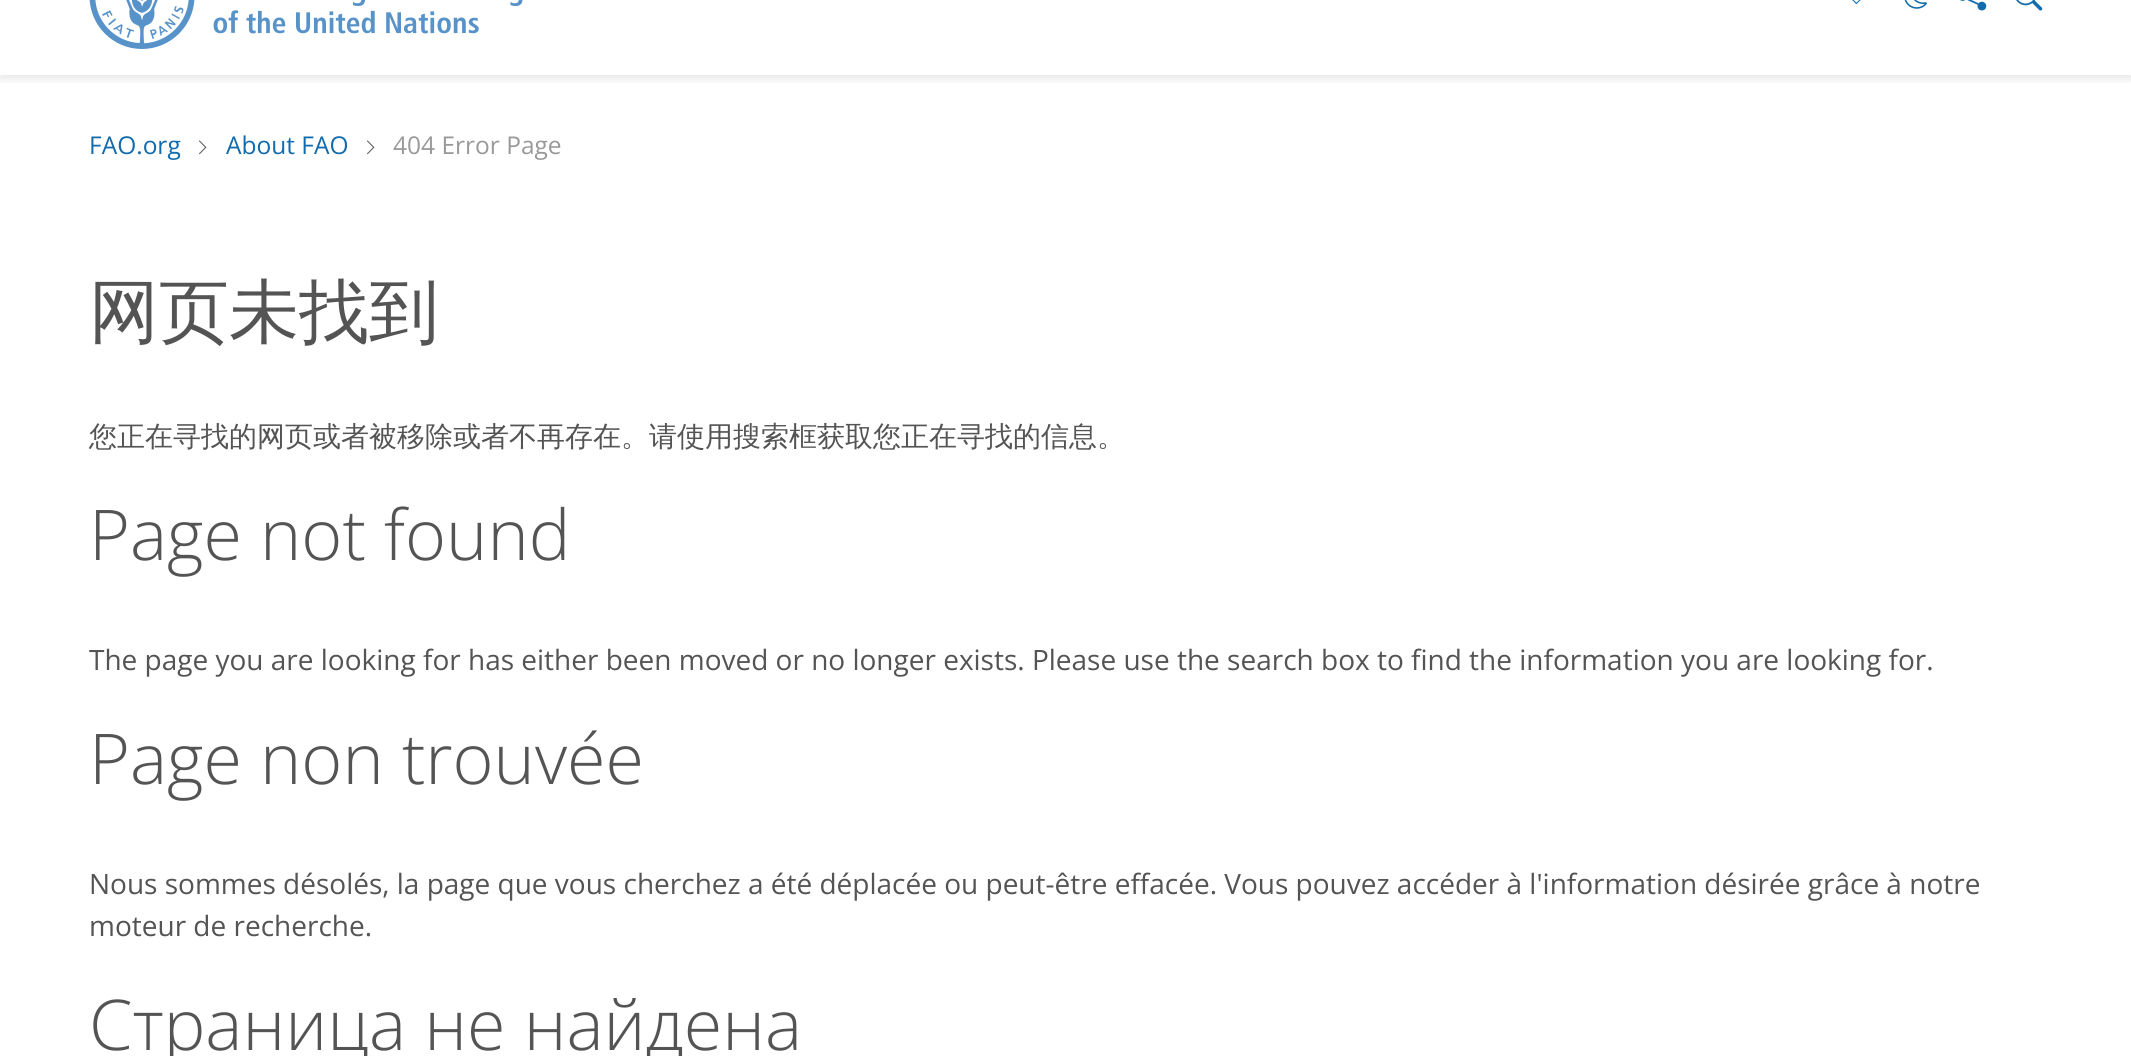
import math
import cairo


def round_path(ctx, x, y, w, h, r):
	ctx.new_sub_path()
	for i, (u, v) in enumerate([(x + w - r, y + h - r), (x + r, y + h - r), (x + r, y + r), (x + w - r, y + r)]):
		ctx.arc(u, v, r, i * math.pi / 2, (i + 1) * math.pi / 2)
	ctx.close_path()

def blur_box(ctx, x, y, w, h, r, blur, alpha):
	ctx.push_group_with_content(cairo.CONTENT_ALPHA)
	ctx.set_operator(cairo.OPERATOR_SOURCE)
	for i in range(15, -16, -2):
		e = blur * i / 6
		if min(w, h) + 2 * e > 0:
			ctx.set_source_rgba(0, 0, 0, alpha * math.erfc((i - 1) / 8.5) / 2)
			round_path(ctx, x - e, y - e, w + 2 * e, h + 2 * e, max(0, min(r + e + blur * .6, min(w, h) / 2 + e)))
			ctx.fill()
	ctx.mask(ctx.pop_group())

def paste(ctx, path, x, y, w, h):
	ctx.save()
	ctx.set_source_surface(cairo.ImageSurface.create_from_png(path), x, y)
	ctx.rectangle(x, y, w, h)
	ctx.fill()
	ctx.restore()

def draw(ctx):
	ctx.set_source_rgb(1, 1, 1)
	ctx.paint()
	ctx.save()
	ctx.rectangle(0, 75, 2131, 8)
	ctx.clip()
	ctx.set_source_rgb(0, 0, 0)
	blur_box(ctx, 0, -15, 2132, 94, 0, 5, 0.1)
	ctx.restore()
	paste(ctx, 'media/1.png', 89, 0, 434, 49)
	paste(ctx, 'media/2.png', 1852, 0, 9, 4)
	paste(ctx, 'media/3.png', 1904, 0, 23, 9)
	paste(ctx, 'media/4.png', 1960, 0, 27, 11)
	paste(ctx, 'media/5.png', 2016, 0, 27, 11)
	ctx.save()
	ctx.rectangle(89, 131, 91, 30)
	ctx.clip()
	ctx.select_font_face('Open Sans')
	ctx.set_font_size(24.5)
	ctx.set_source_rgb(0.067, 0.42, 0.675)
	ctx.move_to(89, 154)
	ctx.show_text('FAO.org')
	ctx.restore()
	paste(ctx, 'media/6.png', 199, 140, 8, 15)
	ctx.select_font_face('Open Sans')
	ctx.set_font_size(24.5)
	ctx.set_source_rgb(0.067, 0.42, 0.675)
	ctx.move_to(226, 154)
	ctx.show_text('About FAO')
	paste(ctx, 'media/6.png', 367, 140, 8, 15)
	ctx.set_source_rgb(0.6, 0.6, 0.6)
	ctx.move_to(393, 154)
	ctx.show_text('404 Error Page')
	ctx.select_font_face('WenQuanYi Zen Hei Medium')
	ctx.set_font_size(70)
	ctx.set_source_rgb(0.329, 0.329, 0.329)
	ctx.move_to(89, 336)
	ctx.show_text('网页未找到')
	ctx.set_font_size(28)
	ctx.move_to(89, 446)
	ctx.show_text('您正在寻找的网页或者被移除或者不再存在。请使用搜索框获取您正在寻找的信息。')
	ctx.select_font_face('Open Sans Light')
	ctx.set_font_size(70)
	ctx.move_to(89, 560)
	ctx.show_text('Page not found')
	ctx.select_font_face('Open Sans')
	ctx.set_font_size(28)
	ctx.move_to(89, 670)
	ctx.show_text('The page you are looking for has either been moved or no longer exists. Please use the search box to find the information you are looking for.')
	ctx.select_font_face('Open Sans Light')
	ctx.set_font_size(70)
	ctx.move_to(89, 784)
	ctx.show_text('Page non trouvée')
	ctx.select_font_face('Open Sans')
	ctx.set_font_size(28)
	ctx.move_to(89, 894)
	ctx.show_text('Nous sommes désolés, la page que vous cherchez a été déplacée ou peut-être effacée. Vous pouvez accéder à l\'information désirée grâce à notre')
	ctx.move_to(89, 936)
	ctx.show_text('moteur de recherche.')
	ctx.select_font_face('Open Sans Light')
	ctx.set_font_size(70)
	ctx.move_to(89, 1050)
	ctx.show_text('Страница не найдена')


surface = cairo.ImageSurface(cairo.FORMAT_RGB24, 2131, 1056)
ctx = cairo.Context(surface)
options = cairo.FontOptions()
options.set_hint_metrics(cairo.HINT_METRICS_OFF)
options.set_hint_style(cairo.HINT_STYLE_NONE)
ctx.set_font_options(options)
ctx.set_miter_limit(4)
draw(ctx)
surface.write_to_png('image.png')
